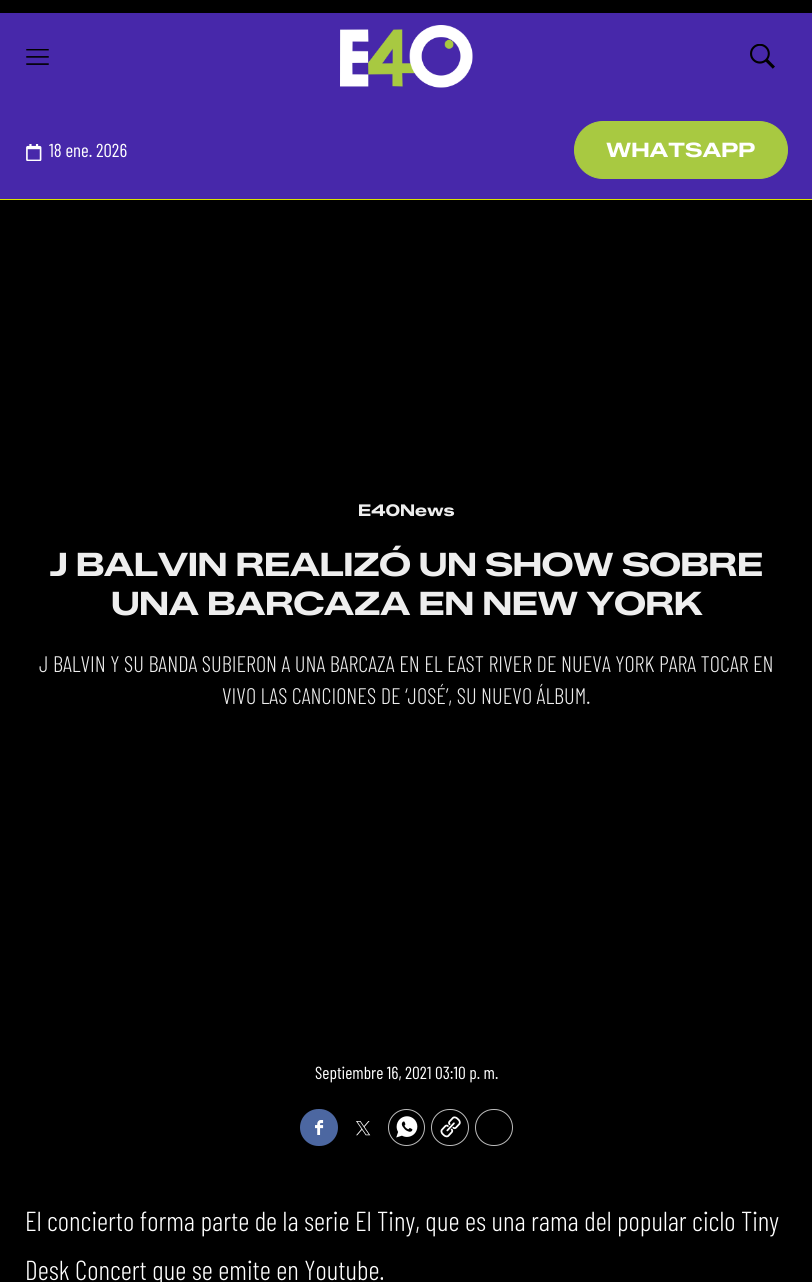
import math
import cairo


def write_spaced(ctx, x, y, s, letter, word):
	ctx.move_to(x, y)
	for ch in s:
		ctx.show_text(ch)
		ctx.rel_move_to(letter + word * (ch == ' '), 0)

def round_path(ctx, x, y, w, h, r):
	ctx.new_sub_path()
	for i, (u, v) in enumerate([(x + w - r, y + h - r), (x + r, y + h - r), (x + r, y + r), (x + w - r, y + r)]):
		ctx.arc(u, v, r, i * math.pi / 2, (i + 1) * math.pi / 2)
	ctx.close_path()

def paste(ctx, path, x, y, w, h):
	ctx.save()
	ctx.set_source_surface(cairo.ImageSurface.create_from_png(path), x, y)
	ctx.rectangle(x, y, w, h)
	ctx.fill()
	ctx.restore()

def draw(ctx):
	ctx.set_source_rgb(0, 0, 0)
	ctx.paint()
	ctx.set_source_rgb(0.278, 0.157, 0.667)
	ctx.rectangle(0, 13, 812, 186)
	ctx.fill()
	paste(ctx, 'media/1.png', 26, 49, 23, 16)
	paste(ctx, 'media/2.png', 340, 25, 133, 63)
	paste(ctx, 'media/3.png', 750, 44, 25, 25)
	ctx.set_source_rgb(0.851, 0.894, 0)
	ctx.rectangle(0, 199, 812, 1)
	ctx.fill()
	paste(ctx, 'media/4.png', 26, 144, 16, 17)
	ctx.select_font_face('Barlow Condensed')
	ctx.set_font_size(18.75)
	ctx.set_source_rgb(1, 1, 1)
	ctx.move_to(49, 157)
	ctx.show_text('18 ene. 2026')
	ctx.set_source_rgb(0.659, 0.788, 0.255)
	round_path(ctx, 574.5, 121.5, 213, 57, 28.5)
	ctx.fill_preserve()
	ctx.set_line_width(1)
	ctx.stroke()
	ctx.select_font_face('Zalando Sans Expanded', cairo.FONT_SLANT_NORMAL, cairo.FONT_WEIGHT_BOLD)
	ctx.set_font_size(20)
	ctx.set_source_rgb(1, 1, 1)
	ctx.move_to(606, 157)
	ctx.show_text('WHATSAPP')
	ctx.set_font_size(16.25)
	ctx.set_source_rgb(0.933, 0.933, 0.933)
	ctx.move_to(358, 516)
	ctx.show_text('E40News')
	ctx.set_font_size(32.5)
	write_spaced(ctx, 50, 576, 'J BALVIN REALIZÓ UN SHOW SOBRE', -0.6, 0)
	write_spaced(ctx, 111, 615, 'UNA BARCAZA EN NEW YORK', -0.6, 0)
	ctx.select_font_face('Barlow Condensed Light')
	ctx.set_font_size(22.5)
	ctx.move_to(39, 672)
	ctx.show_text('J BALVIN Y SU BANDA SUBIERON A UNA BARCAZA EN EL EAST RIVER DE NUEVA YORK PARA TOCAR EN')
	ctx.move_to(222, 704)
	ctx.show_text('VIVO LAS CANCIONES DE ‘JOSÉ’, SU NUEVO ÁLBUM.')
	ctx.select_font_face('Barlow Condensed')
	ctx.set_font_size(17.5)
	ctx.set_source_rgb(1, 1, 1)
	ctx.move_to(315, 1079)
	ctx.show_text('Septiembre 16, 2021 03:10 p. m.')
	ctx.set_source_rgb(0.298, 0.404, 0.631)
	round_path(ctx, 300, 1109, 38, 37, 18.5)
	ctx.fill()
	paste(ctx, 'media/5.png', 315, 1120, 9, 15)
	paste(ctx, 'media/6.png', 356, 1121, 15, 15)
	ctx.arc(406.5, 1127.5, 18, 0, 2 * math.pi)
	ctx.set_source_rgb(0.733, 0.733, 0.733)
	ctx.stroke()
	paste(ctx, 'media/7.png', 396, 1116, 22, 22)
	round_path(ctx, 431.5, 1109.5, 37, 36, 18)
	ctx.stroke()
	paste(ctx, 'media/8.png', 440, 1116, 21, 22)
	round_path(ctx, 475.5, 1109.5, 37, 36, 18)
	ctx.stroke()
	ctx.select_font_face('Barlow Condensed Light')
	ctx.set_font_size(27.5)
	ctx.set_source_rgb(1, 1, 1)
	ctx.move_to(25, 1231)
	ctx.show_text('El concierto forma parte de la serie El Tiny, que es una rama del popular ciclo Tiny')
	ctx.move_to(25, 1280)
	ctx.show_text('Desk Concert que se emite en Youtube.')


surface = cairo.ImageSurface(cairo.FORMAT_RGB24, 812, 1282)
ctx = cairo.Context(surface)
options = cairo.FontOptions()
options.set_hint_metrics(cairo.HINT_METRICS_OFF)
options.set_hint_style(cairo.HINT_STYLE_NONE)
ctx.set_font_options(options)
ctx.set_miter_limit(4)
draw(ctx)
surface.write_to_png('image.png')
